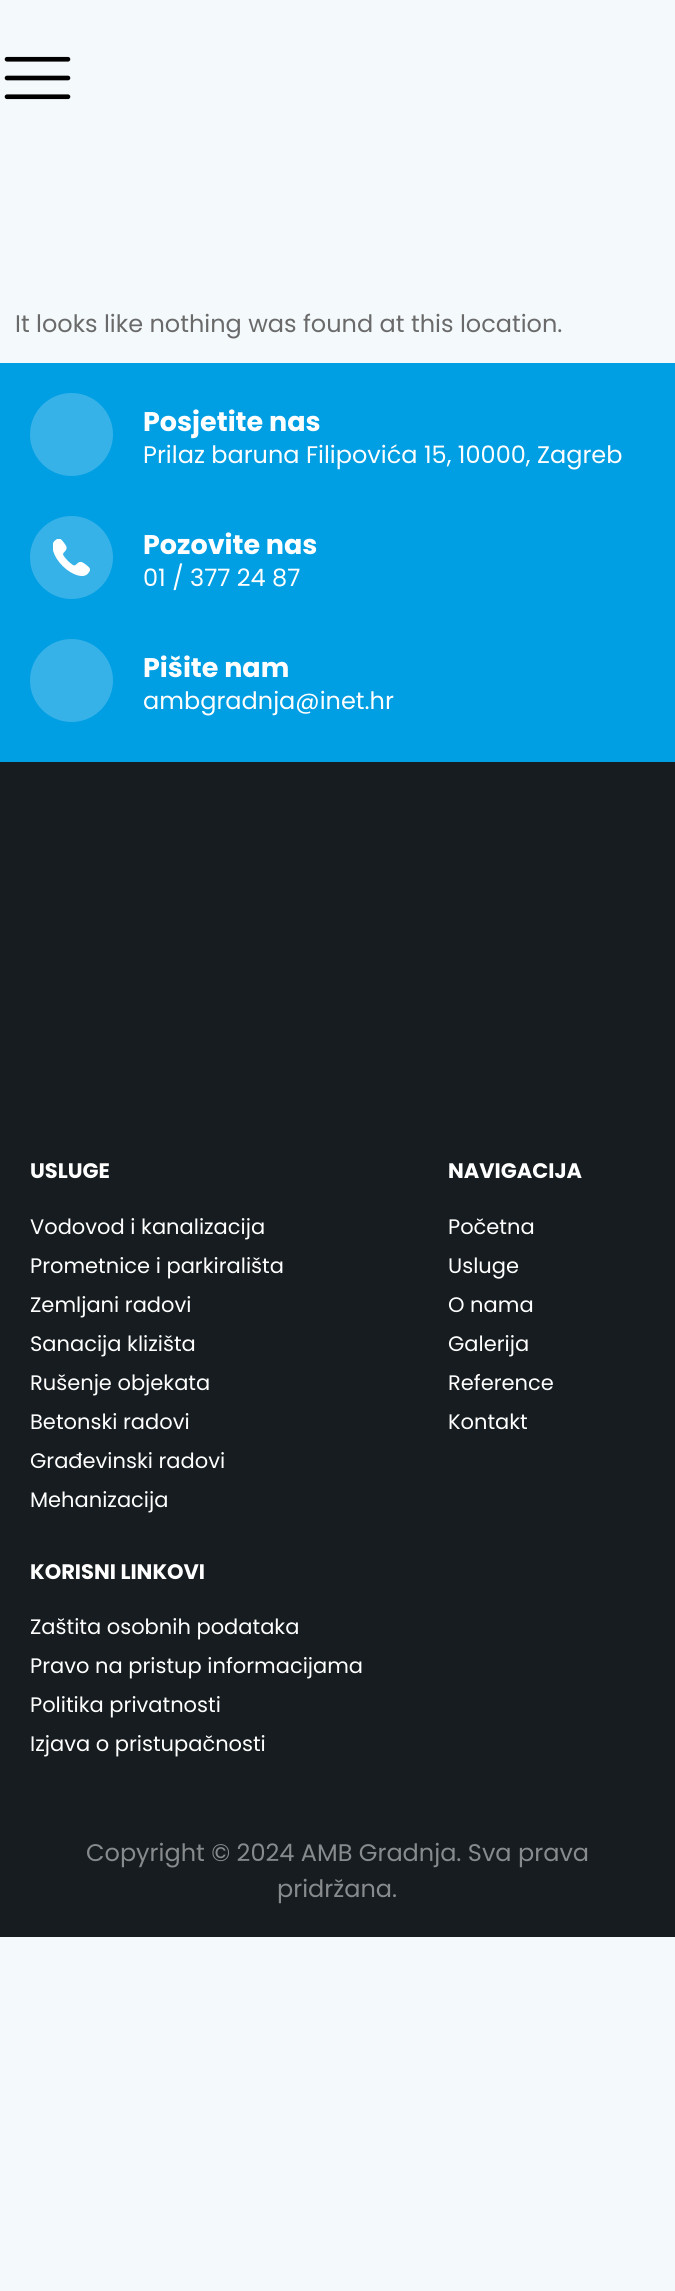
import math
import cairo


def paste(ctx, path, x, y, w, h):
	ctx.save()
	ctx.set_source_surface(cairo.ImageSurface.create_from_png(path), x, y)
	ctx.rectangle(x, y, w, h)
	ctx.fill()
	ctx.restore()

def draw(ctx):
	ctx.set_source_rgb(0.957, 0.973, 0.984)
	ctx.paint()
	paste(ctx, 'media/1.png', 4, 56, 67, 44)
	ctx.select_font_face('Poppins')
	ctx.set_font_size(24)
	ctx.set_source_rgb(0.416, 0.416, 0.416)
	ctx.move_to(15, 332)
	ctx.show_text('It looks like nothing was found at this location.')
	ctx.set_source_rgb(0, 0.62, 0.89)
	ctx.rectangle(0, 363, 675, 399)
	ctx.fill()
	ctx.set_source_rgb(0.212, 0.698, 0.914)
	ctx.arc(71.5, 434.5, 41.5, 0, 2 * math.pi)
	ctx.fill()
	ctx.select_font_face('Poppins', cairo.FONT_SLANT_NORMAL, cairo.FONT_WEIGHT_BOLD)
	ctx.set_font_size(27)
	ctx.set_source_rgb(1, 1, 1)
	ctx.move_to(143, 431)
	ctx.show_text('Posjetite nas')
	ctx.select_font_face('Poppins')
	ctx.set_font_size(24)
	ctx.move_to(143, 463)
	ctx.show_text('Prilaz baruna Filipovića 15, 10000, Zagreb')
	ctx.set_source_rgb(0.212, 0.698, 0.914)
	ctx.new_path()
	ctx.arc(71.5, 557.5, 41.5, 0, 2 * math.pi)
	ctx.fill()
	paste(ctx, 'media/2.png', 53, 539, 37, 37)
	ctx.select_font_face('Poppins', cairo.FONT_SLANT_NORMAL, cairo.FONT_WEIGHT_BOLD)
	ctx.set_font_size(27)
	ctx.set_source_rgb(1, 1, 1)
	ctx.move_to(143, 554)
	ctx.show_text('Pozovite nas')
	ctx.select_font_face('Poppins')
	ctx.set_font_size(24)
	ctx.move_to(143, 586)
	ctx.show_text('01 / 377 24 87')
	ctx.set_source_rgb(0.212, 0.698, 0.914)
	ctx.new_path()
	ctx.arc(71.5, 680.5, 41.5, 0, 2 * math.pi)
	ctx.fill()
	ctx.select_font_face('Poppins', cairo.FONT_SLANT_NORMAL, cairo.FONT_WEIGHT_BOLD)
	ctx.set_font_size(27)
	ctx.set_source_rgb(1, 1, 1)
	ctx.move_to(143, 677)
	ctx.show_text('Pišite nam')
	ctx.select_font_face('Poppins')
	ctx.set_font_size(24)
	ctx.move_to(143, 709)
	ctx.show_text('ambgradnja@inet.hr')
	ctx.set_source_rgb(0.086, 0.11, 0.122)
	ctx.rectangle(0, 762, 675, 1175)
	ctx.fill()
	ctx.select_font_face('Poppins', cairo.FONT_SLANT_NORMAL, cairo.FONT_WEIGHT_BOLD)
	ctx.set_font_size(21)
	ctx.set_source_rgb(1, 1, 1)
	ctx.move_to(30, 1178)
	ctx.show_text('USLUGE')
	ctx.select_font_face('Poppins')
	for x, y, s in [
		(30, 1234, 'Vodovod i kanalizacija'),
		(30, 1273, 'Prometnice i parkirališta'),
		(30, 1312, 'Zemljani radovi'),
		(30, 1351, 'Sanacija klizišta'),
		(30, 1390, 'Rušenje objekata'),
		(30, 1429, 'Betonski radovi'),
		(30, 1468, 'Građevinski radovi'),
		(30, 1507, 'Mehanizacija'),
	]:
		ctx.move_to(x, y)
		ctx.show_text(s)
	ctx.select_font_face('Poppins', cairo.FONT_SLANT_NORMAL, cairo.FONT_WEIGHT_BOLD)
	ctx.move_to(448, 1178)
	ctx.show_text('NAVIGACIJA')
	ctx.select_font_face('Poppins')
	for x, y, s in [
		(448, 1234, 'Početna'),
		(448, 1273, 'Usluge'),
		(448, 1312, 'O nama'),
		(448, 1351, 'Galerija'),
		(448, 1390, 'Reference'),
		(448, 1429, 'Kontakt'),
	]:
		ctx.move_to(x, y)
		ctx.show_text(s)
	ctx.select_font_face('Poppins', cairo.FONT_SLANT_NORMAL, cairo.FONT_WEIGHT_BOLD)
	ctx.move_to(30, 1579)
	ctx.show_text('KORISNI LINKOVI')
	ctx.select_font_face('Poppins')
	for x, y, s in [
		(30, 1634, 'Zaštita osobnih podataka'),
		(30, 1673, 'Pravo na pristup informacijama'),
		(30, 1712, 'Politika privatnosti'),
		(30, 1751, 'Izjava o pristupačnosti'),
	]:
		ctx.move_to(x, y)
		ctx.show_text(s)
	ctx.set_font_size(24)
	ctx.set_source_rgb(0.533, 0.545, 0.553)
	ctx.move_to(86, 1861)
	ctx.show_text('Copyright © 2024 AMB Gradnja. Sva prava')
	ctx.move_to(277, 1897)
	ctx.show_text('pridržana.')


surface = cairo.ImageSurface(cairo.FORMAT_RGB24, 675, 2291)
ctx = cairo.Context(surface)
options = cairo.FontOptions()
options.set_hint_metrics(cairo.HINT_METRICS_OFF)
options.set_hint_style(cairo.HINT_STYLE_NONE)
ctx.set_font_options(options)
ctx.set_miter_limit(4)
draw(ctx)
surface.write_to_png('image.png')
